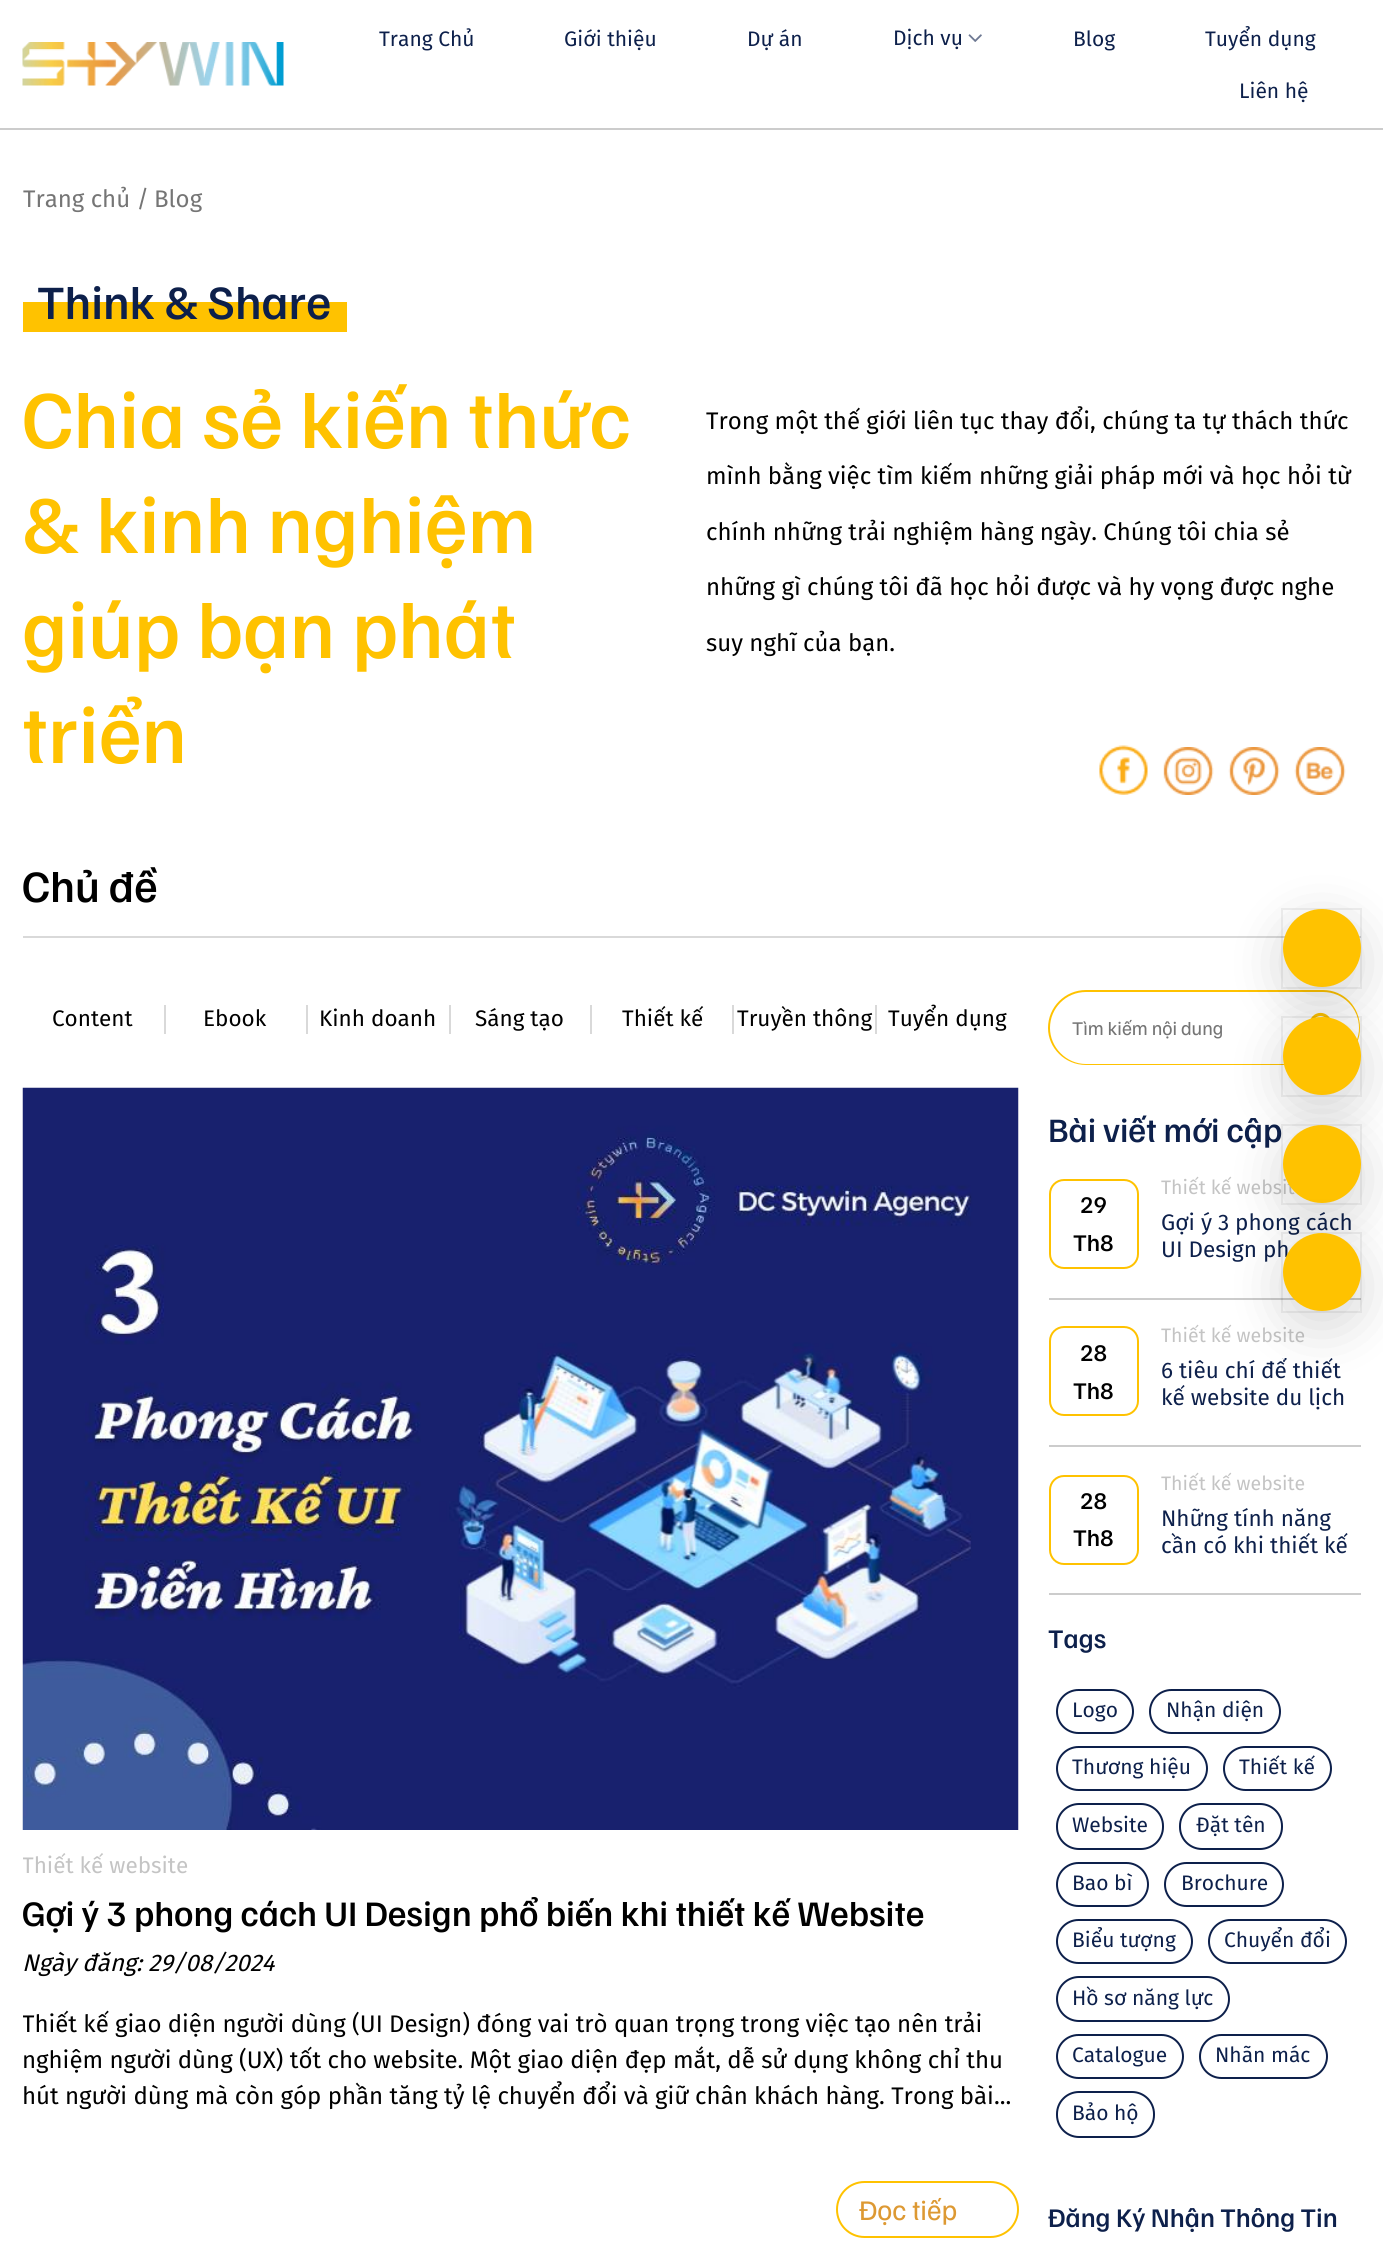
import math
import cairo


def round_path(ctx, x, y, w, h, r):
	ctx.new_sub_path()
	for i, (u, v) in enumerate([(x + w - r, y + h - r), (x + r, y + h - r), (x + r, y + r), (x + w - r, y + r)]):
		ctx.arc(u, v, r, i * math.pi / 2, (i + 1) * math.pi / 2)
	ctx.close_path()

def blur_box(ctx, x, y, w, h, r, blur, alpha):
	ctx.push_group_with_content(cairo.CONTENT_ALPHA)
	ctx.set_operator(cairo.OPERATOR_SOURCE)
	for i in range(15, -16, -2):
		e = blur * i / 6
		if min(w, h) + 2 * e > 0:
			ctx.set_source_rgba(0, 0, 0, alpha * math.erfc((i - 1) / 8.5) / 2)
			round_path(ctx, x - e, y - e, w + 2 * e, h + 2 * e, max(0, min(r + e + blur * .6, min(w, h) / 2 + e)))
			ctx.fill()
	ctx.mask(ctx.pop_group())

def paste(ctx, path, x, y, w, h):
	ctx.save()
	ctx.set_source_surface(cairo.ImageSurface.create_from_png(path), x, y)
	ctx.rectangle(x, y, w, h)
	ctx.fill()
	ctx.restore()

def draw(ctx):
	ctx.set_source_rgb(1, 1, 1)
	ctx.paint()
	paste(ctx, 'media/1.png', 22, 42, 262, 44)
	ctx.select_font_face('Fira Sans')
	ctx.set_font_size(21)
	ctx.set_source_rgb(0.051, 0.125, 0.294)
	for x, y, s in [
		(379, 46, 'Trang Chủ'),
		(564, 46, 'Giới thiệu'),
		(747, 46, 'Dự án'),
		(893, 45, 'Dịch vụ'),
	]:
		ctx.move_to(x, y)
		ctx.show_text(s)
	paste(ctx, 'media/2.png', 968, 34, 14, 8)
	for x, y, s in [
		(1073, 46, 'Blog'),
		(1205, 46, 'Tuyển dụng'),
		(1239, 98, 'Liên hệ'),
	]:
		ctx.move_to(x, y)
		ctx.show_text(s)
	ctx.set_source_rgb(0.8, 0.8, 0.8)
	ctx.rectangle(0, 128, 1383, 2)
	ctx.fill()
	ctx.set_font_size(24)
	ctx.set_source_rgb(0.459, 0.459, 0.459)
	ctx.move_to(23, 207)
	ctx.show_text('Trang chủ /')
	ctx.move_to(154, 207)
	ctx.show_text('Blog')
	ctx.set_source_rgb(1, 0.761, 0)
	ctx.rectangle(23, 302, 324, 30)
	ctx.fill()
	ctx.select_font_face('Familjen Grotesk Medium')
	ctx.set_font_size(48)
	ctx.set_source_rgb(0.051, 0.125, 0.294)
	ctx.move_to(37, 319)
	ctx.show_text('Think & Share')
	ctx.set_font_size(82.5)
	ctx.set_source_rgb(1, 0.761, 0)
	for x, y, s in [
		(22, 448, 'Chia sẻ kiến thức'),
		(22, 553, '& kinh nghiệm'),
		(22, 658, 'giúp bạn phát'),
		(22, 763, 'triển'),
	]:
		ctx.move_to(x, y)
		ctx.show_text(s)
	ctx.select_font_face('Fira Sans')
	ctx.set_font_size(24)
	ctx.set_source_rgb(0, 0, 0)
	for x, y, s in [
		(706, 429, 'Trong một thế giới liên tục thay đổi, chúng ta tự thách thức'),
		(706, 484, 'mình bằng việc tìm kiếm những giải pháp mới và học hỏi từ'),
		(706, 540, 'chính những trải nghiệm hàng ngày. Chúng tôi chia sẻ'),
		(706, 595, 'những gì chúng tôi đã học hỏi được và hy vọng được nghe'),
		(706, 651, 'suy nghĩ của bạn.'),
	]:
		ctx.move_to(x, y)
		ctx.show_text(s)
	paste(ctx, 'media/3.png', 1099, 745, 49, 50)
	paste(ctx, 'media/4.png', 1163, 747, 51, 48)
	paste(ctx, 'media/5.png', 1228, 747, 52, 48)
	paste(ctx, 'media/6.png', 1294, 747, 52, 48)
	ctx.set_source_rgb(0.851, 0.851, 0.851)
	ctx.rectangle(23, 936, 1338, 2)
	ctx.fill()
	ctx.select_font_face('Familjen Grotesk Medium')
	ctx.set_font_size(45)
	ctx.set_source_rgb(0, 0, 0)
	ctx.move_to(22, 902)
	ctx.show_text('Chủ đề')
	ctx.set_source_rgb(0.851, 0.851, 0.851)
	ctx.rectangle(164, 1005, 2, 29)
	ctx.fill()
	ctx.select_font_face('Fira Sans')
	ctx.set_font_size(22.5)
	ctx.set_source_rgb(0, 0, 0)
	ctx.move_to(52, 1026)
	ctx.show_text('Content')
	ctx.set_source_rgb(0.851, 0.851, 0.851)
	ctx.rectangle(306, 1005, 2, 29)
	ctx.fill()
	ctx.set_source_rgb(0, 0, 0)
	ctx.move_to(203, 1026)
	ctx.show_text('Ebook')
	ctx.set_source_rgb(0.851, 0.851, 0.851)
	ctx.rectangle(449, 1005, 2, 29)
	ctx.fill()
	ctx.set_source_rgb(0, 0, 0)
	ctx.move_to(319, 1026)
	ctx.show_text('Kinh doanh')
	ctx.set_source_rgb(0.851, 0.851, 0.851)
	ctx.rectangle(590, 1005, 2, 29)
	ctx.fill()
	ctx.set_source_rgb(0, 0, 0)
	ctx.move_to(475, 1026)
	ctx.show_text('Sáng tạo')
	ctx.set_source_rgb(0.851, 0.851, 0.851)
	ctx.rectangle(732, 1005, 2, 29)
	ctx.fill()
	ctx.set_source_rgb(0, 0, 0)
	ctx.move_to(622, 1026)
	ctx.show_text('Thiết kế')
	ctx.set_source_rgb(0.851, 0.851, 0.851)
	ctx.rectangle(875, 1005, 2, 29)
	ctx.fill()
	ctx.set_source_rgb(0, 0, 0)
	ctx.move_to(737, 1026)
	ctx.show_text('Truyền thông')
	ctx.move_to(888, 1026)
	ctx.show_text('Tuyển dụng')
	paste(ctx, 'media/7.png', 22, 1087, 997, 743)
	ctx.save()
	ctx.rectangle(23, 1088, 996, 1150)
	ctx.clip()
	ctx.set_source_rgb(0.769, 0.769, 0.769)
	ctx.move_to(22, 1873)
	ctx.show_text('Thiết kế website')
	ctx.restore()
	ctx.select_font_face('Familjen Grotesk Medium')
	ctx.set_font_size(36)
	ctx.move_to(22, 1926)
	ctx.show_text('Gợi ý 3 phong cách UI Design phổ biến khi thiết kế Website')
	ctx.select_font_face('Fira Sans', cairo.FONT_SLANT_ITALIC)
	ctx.set_font_size(24)
	ctx.move_to(22, 1971)
	ctx.show_text('Ngày đăng: 29/08/2024')
	ctx.save()
	ctx.rectangle(23, 2007, 996, 144)
	ctx.clip()
	ctx.select_font_face('Fira Sans')
	ctx.move_to(22, 2032)
	ctx.show_text('Thiết kế giao diện người dùng (UI Design) đóng vai trò quan trọng trong việc tạo nên trải')
	ctx.restore()
	ctx.select_font_face('Fira Sans')
	ctx.move_to(22, 2068)
	ctx.show_text('nghiệm người dùng (UX) tốt cho website. Một giao diện đẹp mắt, dễ sử dụng không chỉ thu')
	ctx.move_to(22, 2104)
	ctx.show_text('hút người dùng mà còn góp phần tăng tỷ lệ chuyển đổi và giữ chân khách hàng. Trong bài...')
	round_path(ctx, 837, 2182, 181, 55, 27.5)
	ctx.set_source_rgb(1, 0.761, 0)
	ctx.stroke()
	ctx.select_font_face('Familjen Grotesk')
	ctx.set_font_size(28.5)
	ctx.set_source_rgb(0.867, 0.6, 0.2)
	ctx.move_to(859, 2220)
	ctx.show_text('Đọc tiếp')
	ctx.set_source_rgb(1, 0.761, 0)
	ctx.set_fill_rule(cairo.FILL_RULE_EVEN_ODD)
	ctx.new_path()
	ctx.move_to(1086, 990)
	ctx.line_to(1286, 990)
	ctx.line_to(1286, 1065)
	ctx.line_to(1086, 1065)
	ctx.curve_to(1065, 1065, 1048, 1048, 1048, 1028)
	ctx.curve_to(1048, 1007, 1065, 990, 1086, 990)
	ctx.close_path()
	ctx.move_to(1086, 992)
	ctx.line_to(1286, 992)
	ctx.line_to(1286, 1064)
	ctx.line_to(1086, 1064)
	ctx.curve_to(1066, 1064, 1050, 1047, 1050, 1028)
	ctx.curve_to(1050, 1008, 1066, 992, 1086, 992)
	ctx.close_path()
	ctx.fill()
	ctx.set_font_size(19.5)
	ctx.set_source_rgb(0.459, 0.459, 0.459)
	ctx.move_to(1072, 1035)
	ctx.show_text('Tìm kiếm nội dung')
	ctx.set_source_rgb(1, 0.761, 0)
	ctx.new_path()
	ctx.move_to(1286, 990)
	ctx.line_to(1323, 990)
	ctx.curve_to(1344, 990, 1360, 1007, 1360, 1028)
	ctx.curve_to(1360, 1048, 1344, 1065, 1323, 1065)
	ctx.line_to(1286, 1065)
	ctx.close_path()
	ctx.move_to(1286, 992)
	ctx.line_to(1323, 992)
	ctx.curve_to(1343, 992, 1359, 1008, 1359, 1028)
	ctx.curve_to(1359, 1047, 1343, 1064, 1323, 1064)
	ctx.line_to(1286, 1064)
	ctx.close_path()
	ctx.fill()
	paste(ctx, 'media/8.png', 1310, 1012, 21, 7)
	ctx.select_font_face('Familjen Grotesk Medium')
	ctx.set_font_size(34.25)
	ctx.set_source_rgb(0.051, 0.125, 0.294)
	ctx.move_to(1048, 1142)
	ctx.show_text('Bài viết mới cập')
	ctx.set_source_rgb(0.8, 0.8, 0.8)
	ctx.rectangle(1049, 1298, 312, 2)
	ctx.fill()
	round_path(ctx, 1050, 1180, 88, 88, 14)
	ctx.set_source_rgb(1, 0.761, 0)
	ctx.stroke()
	ctx.set_font_size(24)
	ctx.set_source_rgb(0, 0, 0)
	ctx.move_to(1080, 1213)
	ctx.show_text('29')
	ctx.move_to(1073, 1251)
	ctx.show_text('Th8')
	ctx.select_font_face('Fira Sans')
	ctx.set_font_size(19.5)
	ctx.set_source_rgb(0.769, 0.769, 0.769)
	ctx.move_to(1161, 1194)
	ctx.show_text('Thiết kế websit')
	ctx.set_font_size(22.5)
	ctx.set_source_rgb(0.051, 0.125, 0.294)
	ctx.move_to(1161, 1230)
	ctx.show_text('Gợi ý 3 phong cách')
	ctx.move_to(1161, 1257)
	ctx.show_text('UI Design ph')
	ctx.set_source_rgb(0.8, 0.8, 0.8)
	ctx.rectangle(1049, 1445, 312, 2)
	ctx.fill()
	round_path(ctx, 1050, 1327, 88, 88, 14)
	ctx.set_source_rgb(1, 0.761, 0)
	ctx.stroke()
	ctx.select_font_face('Familjen Grotesk Medium')
	ctx.set_font_size(24)
	ctx.set_source_rgb(0, 0, 0)
	ctx.move_to(1080, 1361)
	ctx.show_text('28')
	ctx.move_to(1073, 1399)
	ctx.show_text('Th8')
	ctx.select_font_face('Fira Sans')
	ctx.set_font_size(19.5)
	ctx.set_source_rgb(0.769, 0.769, 0.769)
	ctx.move_to(1161, 1342)
	ctx.show_text('Thiết kế website')
	ctx.save()
	ctx.set_fill_rule(cairo.FILL_RULE_WINDING)
	ctx.rectangle(1161, 1358, 200, 54)
	ctx.clip()
	ctx.set_font_size(22.5)
	ctx.set_source_rgb(0.051, 0.125, 0.294)
	ctx.move_to(1161, 1378)
	ctx.show_text('6 tiêu chí để thiết')
	ctx.restore()
	ctx.set_font_size(22.5)
	ctx.set_source_rgb(0.051, 0.125, 0.294)
	ctx.move_to(1161, 1405)
	ctx.show_text('kế website du lịch')
	ctx.set_source_rgb(0.8, 0.8, 0.8)
	ctx.rectangle(1049, 1593, 312, 2)
	ctx.fill()
	round_path(ctx, 1050, 1476, 88, 88, 14)
	ctx.set_source_rgb(1, 0.761, 0)
	ctx.stroke()
	ctx.select_font_face('Familjen Grotesk Medium')
	ctx.set_font_size(24)
	ctx.set_source_rgb(0, 0, 0)
	ctx.move_to(1080, 1509)
	ctx.show_text('28')
	ctx.move_to(1073, 1546)
	ctx.show_text('Th8')
	ctx.select_font_face('Fira Sans')
	ctx.set_font_size(19.5)
	ctx.set_source_rgb(0.769, 0.769, 0.769)
	ctx.move_to(1161, 1490)
	ctx.show_text('Thiết kế website')
	ctx.set_font_size(22.5)
	ctx.set_source_rgb(0.051, 0.125, 0.294)
	ctx.move_to(1161, 1526)
	ctx.show_text('Những tính năng')
	ctx.move_to(1161, 1553)
	ctx.show_text('cần có khi thiết kế')
	ctx.select_font_face('Familjen Grotesk Medium')
	ctx.set_font_size(27)
	ctx.move_to(1048, 1648)
	ctx.show_text('Tags')
	round_path(ctx, 1057, 1690, 76, 43, 21.5)
	ctx.stroke()
	ctx.select_font_face('Fira Sans')
	ctx.set_font_size(21)
	ctx.move_to(1072, 1717)
	ctx.show_text('Logo')
	round_path(ctx, 1150, 1690, 130, 43, 21.5)
	ctx.stroke()
	ctx.move_to(1166, 1717)
	ctx.show_text('Nhận diện')
	round_path(ctx, 1057, 1747, 150, 43, 21.5)
	ctx.stroke()
	ctx.move_to(1072, 1774)
	ctx.show_text('Thương hiệu')
	round_path(ctx, 1224, 1747, 107, 43, 21.5)
	ctx.stroke()
	ctx.move_to(1239, 1774)
	ctx.show_text('Thiết kế')
	round_path(ctx, 1057, 1804, 106, 45, 22)
	ctx.stroke()
	ctx.move_to(1072, 1832)
	ctx.show_text('Website')
	round_path(ctx, 1180, 1804, 102, 45, 22)
	ctx.stroke()
	ctx.move_to(1196, 1832)
	ctx.show_text('Đặt tên')
	round_path(ctx, 1057, 1863, 91, 43, 21.5)
	ctx.stroke()
	ctx.move_to(1072, 1890)
	ctx.show_text('Bao bì')
	round_path(ctx, 1165, 1863, 118, 43, 21.5)
	ctx.stroke()
	ctx.move_to(1181, 1890)
	ctx.show_text('Brochure')
	round_path(ctx, 1057, 1920, 135, 43, 21.5)
	ctx.stroke()
	ctx.move_to(1072, 1947)
	ctx.show_text('Biểu tượng')
	round_path(ctx, 1209, 1920, 137, 43, 21.5)
	ctx.stroke()
	ctx.move_to(1224, 1947)
	ctx.show_text('Chuyển đổi')
	round_path(ctx, 1057, 1977, 172, 44, 22)
	ctx.stroke()
	ctx.move_to(1072, 2005)
	ctx.show_text('Hồ sơ năng lực')
	round_path(ctx, 1057, 2035, 126, 43, 21.5)
	ctx.stroke()
	ctx.move_to(1072, 2062)
	ctx.show_text('Catalogue')
	round_path(ctx, 1200, 2035, 127, 43, 21.5)
	ctx.stroke()
	ctx.move_to(1215, 2062)
	ctx.show_text('Nhãn mác')
	round_path(ctx, 1057, 2092, 97, 45, 22)
	ctx.stroke()
	ctx.move_to(1072, 2120)
	ctx.show_text('Bảo hộ')
	ctx.select_font_face('Familjen Grotesk Medium')
	ctx.set_font_size(27)
	ctx.move_to(1048, 2227)
	ctx.show_text('Đăng Ký Nhận Thông Tin')
	ctx.rectangle(1282, 909, 79, 79)
	ctx.set_source_rgba(0, 0, 0, 0.06)
	ctx.stroke()
	ctx.set_source_rgb(0, 0, 0)
	blur_box(ctx, 1283, 924, 78, 78, 39, 27, 0.16)
	ctx.set_source_rgb(1, 0.761, 0)
	ctx.arc(1322, 948, 39, 0, 2 * math.pi)
	ctx.fill()
	ctx.rectangle(1282, 1017, 79, 79)
	ctx.set_source_rgba(0, 0, 0, 0.06)
	ctx.stroke()
	ctx.set_source_rgb(0, 0, 0)
	blur_box(ctx, 1283, 1032, 78, 78, 39, 27, 0.16)
	ctx.set_source_rgb(1, 0.761, 0)
	ctx.arc(1322, 1056, 39, 0, 2 * math.pi)
	ctx.fill()
	ctx.rectangle(1282, 1125, 79, 79)
	ctx.set_source_rgba(0, 0, 0, 0.06)
	ctx.stroke()
	ctx.set_source_rgb(0, 0, 0)
	blur_box(ctx, 1283, 1140, 78, 78, 39, 27, 0.16)
	ctx.set_source_rgb(1, 0.761, 0)
	ctx.arc(1322, 1164, 39, 0, 2 * math.pi)
	ctx.fill()
	ctx.rectangle(1282, 1233, 79, 79)
	ctx.set_source_rgba(0, 0, 0, 0.06)
	ctx.stroke()
	ctx.set_source_rgb(0, 0, 0)
	blur_box(ctx, 1283, 1248, 78, 78, 39, 27, 0.16)
	ctx.set_source_rgb(1, 0.761, 0)
	ctx.arc(1322, 1272, 39, 0, 2 * math.pi)
	ctx.fill()


surface = cairo.ImageSurface(cairo.FORMAT_RGB24, 1383, 2249)
ctx = cairo.Context(surface)
options = cairo.FontOptions()
options.set_hint_metrics(cairo.HINT_METRICS_OFF)
options.set_hint_style(cairo.HINT_STYLE_NONE)
ctx.set_font_options(options)
ctx.set_miter_limit(4)
draw(ctx)
surface.write_to_png('image.png')
